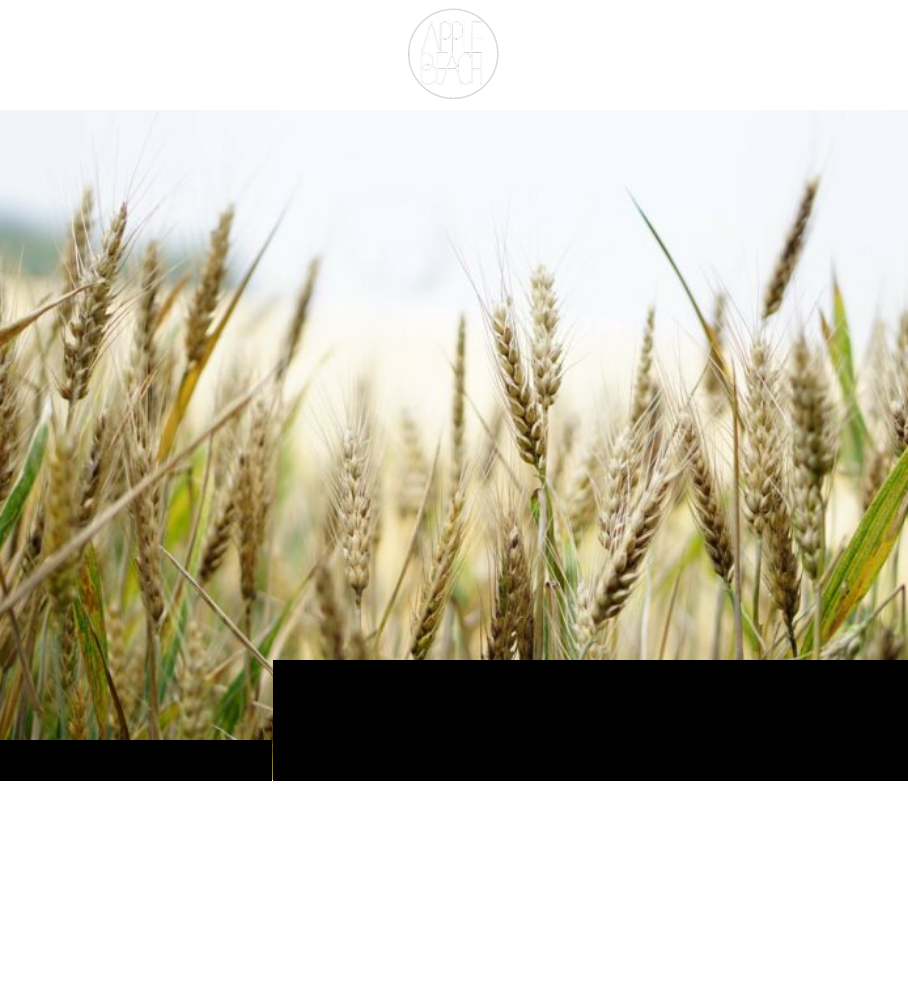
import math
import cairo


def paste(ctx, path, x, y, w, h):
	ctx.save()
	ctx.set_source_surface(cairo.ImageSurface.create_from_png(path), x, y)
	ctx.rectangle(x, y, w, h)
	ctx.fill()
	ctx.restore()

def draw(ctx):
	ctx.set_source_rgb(1, 1, 1)
	ctx.paint()
	paste(ctx, 'media/1.png', 408, 8, 91, 92)
	paste(ctx, 'media/2.png', 0, 110, 908, 670)
	ctx.set_source_rgb(0, 0, 0)
	ctx.rectangle(0, 740, 272, 41)
	ctx.fill()
	ctx.rectangle(273, 660, 635, 121)
	ctx.fill()


surface = cairo.ImageSurface(cairo.FORMAT_RGB24, 908, 985)
ctx = cairo.Context(surface)
options = cairo.FontOptions()
options.set_hint_metrics(cairo.HINT_METRICS_OFF)
options.set_hint_style(cairo.HINT_STYLE_NONE)
ctx.set_font_options(options)
ctx.set_miter_limit(4)
draw(ctx)
surface.write_to_png('image.png')
